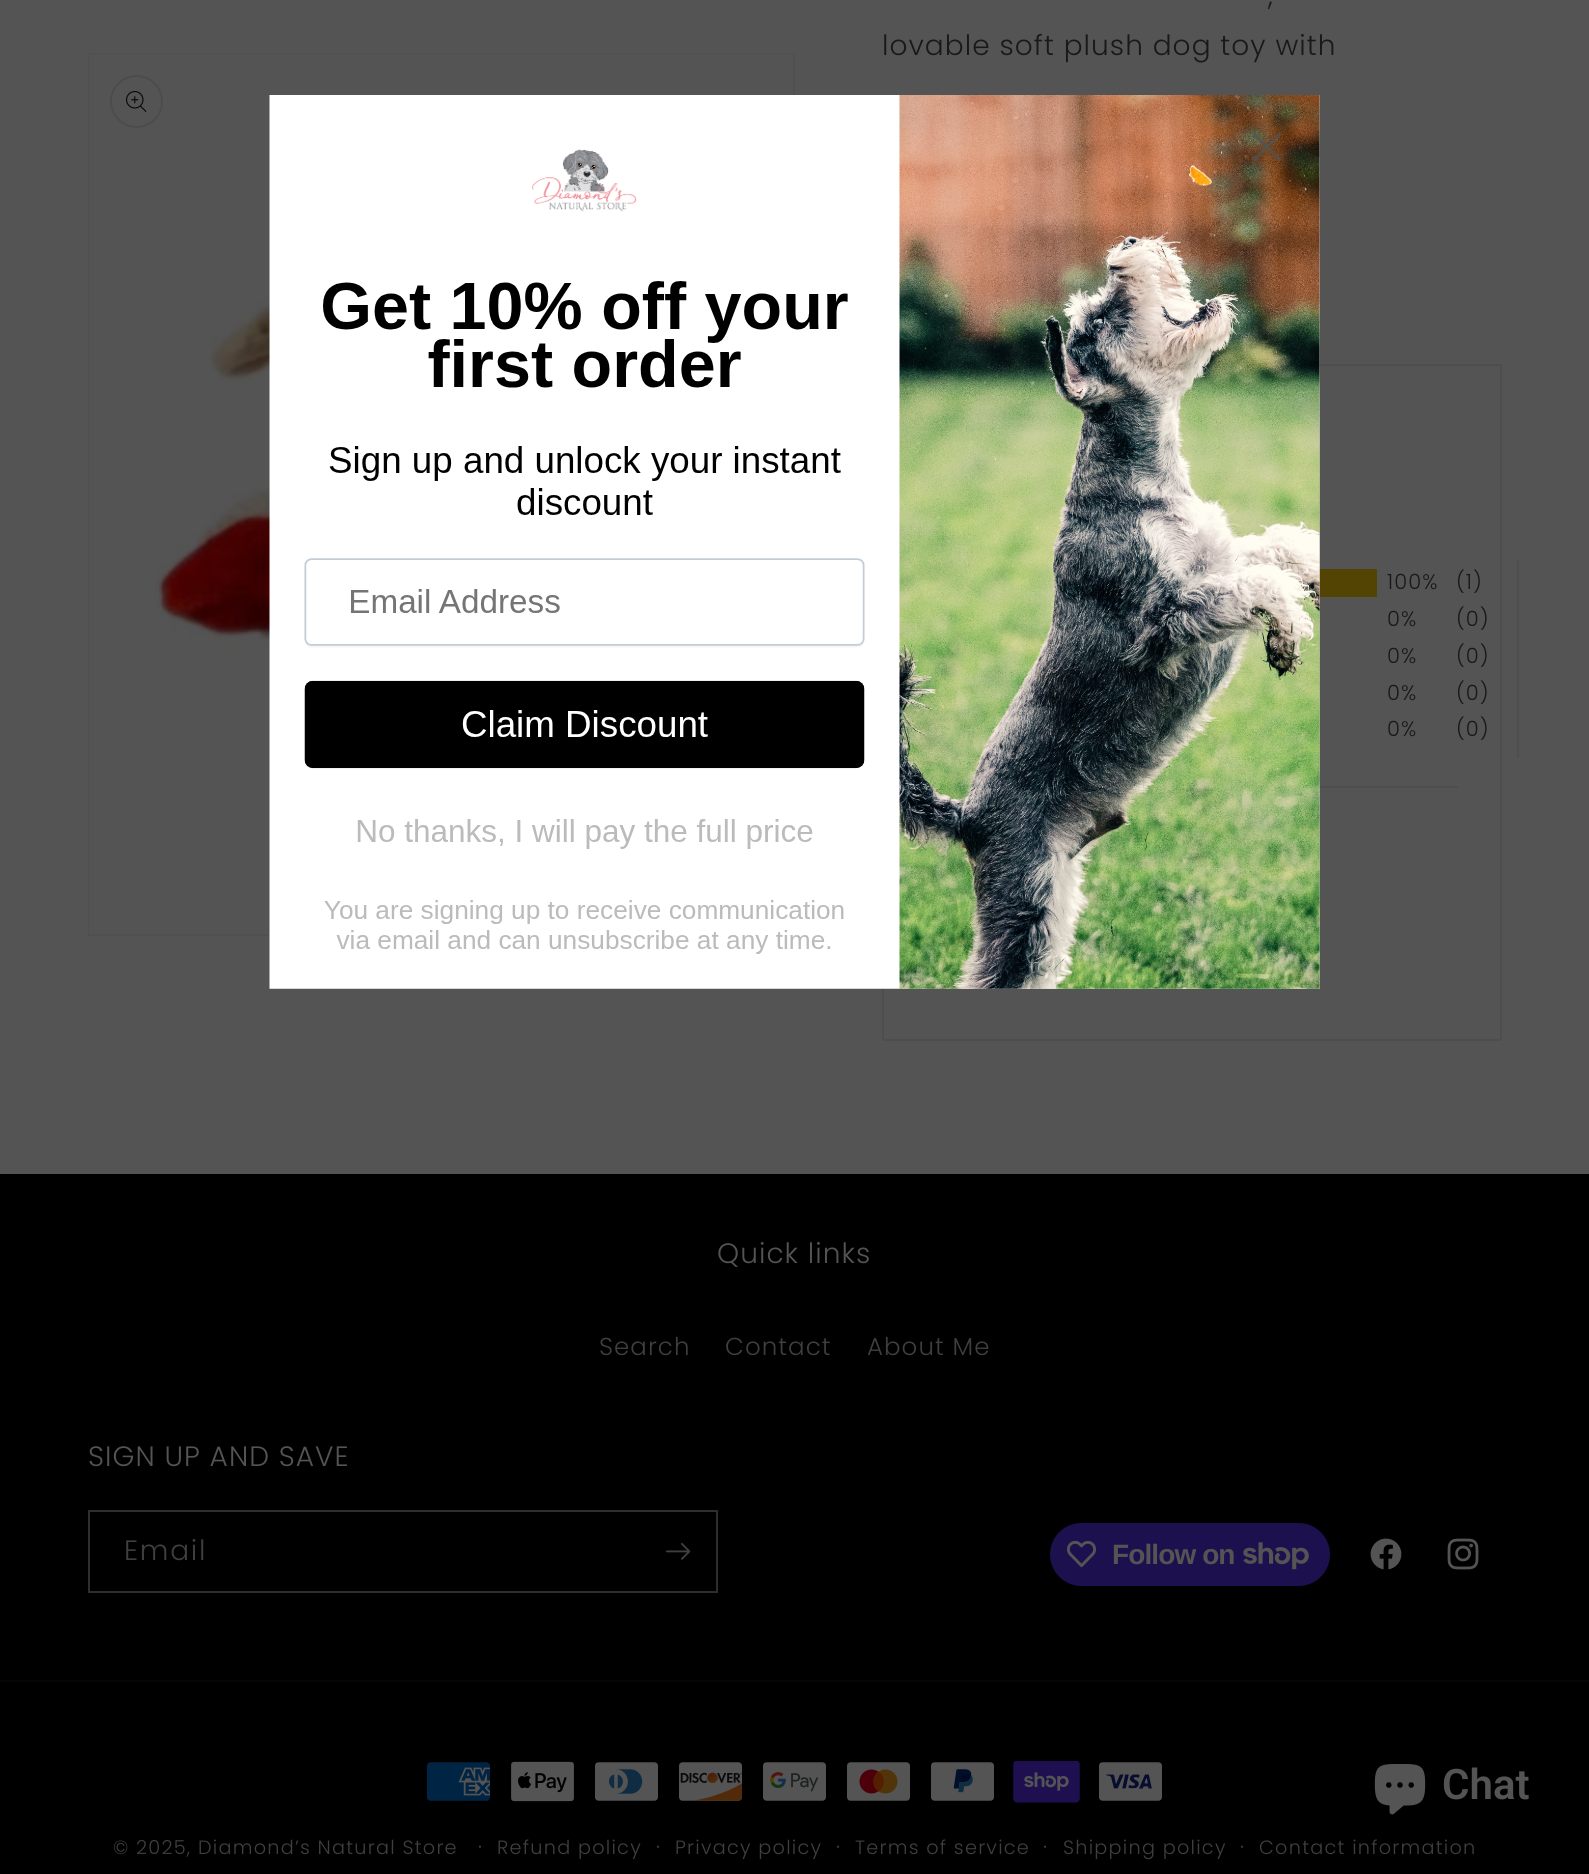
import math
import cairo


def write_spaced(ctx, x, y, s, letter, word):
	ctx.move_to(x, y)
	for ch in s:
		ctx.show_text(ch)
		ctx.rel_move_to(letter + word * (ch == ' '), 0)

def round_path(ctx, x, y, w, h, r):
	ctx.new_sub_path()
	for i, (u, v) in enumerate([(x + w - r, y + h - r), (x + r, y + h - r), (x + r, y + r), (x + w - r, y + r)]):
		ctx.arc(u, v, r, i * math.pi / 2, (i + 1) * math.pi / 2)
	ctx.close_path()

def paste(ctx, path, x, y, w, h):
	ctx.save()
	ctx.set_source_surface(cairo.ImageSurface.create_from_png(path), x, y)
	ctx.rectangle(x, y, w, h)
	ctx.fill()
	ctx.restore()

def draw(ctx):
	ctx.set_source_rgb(1, 1, 1)
	ctx.paint()
	ctx.rectangle(89, 54, 705, 881)
	ctx.set_source_rgb(0.953, 0.953, 0.953)
	ctx.stroke()
	paste(ctx, 'media/2.png', 89, 54, 704, 880)
	ctx.arc(136.5, 101.5, 25.5, 0, 2 * math.pi)
	ctx.set_source_rgb(0.906, 0.906, 0.906)
	ctx.stroke()
	paste(ctx, 'media/3.png', 126, 91, 21, 21)
	ctx.select_font_face('Poppins Light')
	ctx.set_font_size(28)
	ctx.set_source_rgb(0.302, 0.302, 0.302)
	write_spaced(ctx, 1268, 5, ',', 1.05, 0)
	write_spaced(ctx, 882, 55, 'lovable soft plush dog toy with', 1.05, 0)
	ctx.rectangle(883, 365, 618, 675)
	ctx.set_source_rgb(0.933, 0.933, 0.933)
	ctx.stroke()
	ctx.rectangle(1517, 560, 2, 198)
	ctx.fill()
	ctx.set_source_rgb(0.984, 0.804, 0.039)
	ctx.rectangle(1319, 569, 58, 28)
	ctx.fill()
	ctx.set_font_size(21)
	ctx.set_source_rgb(0.302, 0.302, 0.302)
	for x, y, s in [
		(1387, 589, '100%'),
		(1456, 589, '(1)'),
		(1387, 626, '0%'),
		(1456, 626, '(0)'),
		(1387, 663, '0%'),
		(1456, 663, '(0)'),
		(1387, 700, '0%'),
		(1456, 700, '(0)'),
		(1387, 736, '0%'),
		(1456, 736, '(0)'),
	]:
		write_spaced(ctx, x, y, s, 1.05, 0)
	ctx.set_source_rgb(0.933, 0.933, 0.933)
	ctx.rectangle(1319, 786, 139, 2)
	ctx.fill()
	ctx.set_source_rgb(0, 0, 0)
	ctx.rectangle(0, 1174, 1589, 700)
	ctx.fill()
	ctx.set_font_size(28)
	ctx.set_source_rgb(1, 1, 1)
	write_spaced(ctx, 717, 1263, 'Quick links', 1.05, 0)
	ctx.set_font_size(24.5)
	ctx.set_source_rgb(0.749, 0.749, 0.749)
	for x, y, s in [
		(599, 1355, 'Search'),
		(725, 1355, 'Contact'),
		(867, 1355, 'About Me'),
	]:
		write_spaced(ctx, x, y, s, 1.05, 0)
	ctx.set_font_size(28)
	ctx.set_source_rgb(1, 1, 1)
	write_spaced(ctx, 88, 1466, 'SIGN UP AND SAVE', 1.05, 0)
	ctx.rectangle(89, 1511, 628, 81)
	ctx.set_source_rgb(0.549, 0.549, 0.549)
	ctx.stroke()
	ctx.set_source_rgb(0.749, 0.749, 0.749)
	write_spaced(ctx, 124, 1560, 'Email', 1.75, 0)
	paste(ctx, 'media/4.png', 666, 1543, 25, 17)
	ctx.set_source_rgb(0.329, 0.2, 0.922)
	round_path(ctx, 1050, 1523, 280, 63, 31.5)
	ctx.fill()
	paste(ctx, 'media/5.png', 1066, 1540, 31, 28)
	ctx.select_font_face('Liberation Sans', cairo.FONT_SLANT_NORMAL, cairo.FONT_WEIGHT_BOLD)
	ctx.set_source_rgb(1, 1, 1)
	write_spaced(ctx, 1112, 1564, 'Follow on', -0.9, 0)
	paste(ctx, 'media/6.png', 1243, 1542, 66, 28)
	paste(ctx, 'media/7.png', 1370, 1538, 32, 32)
	paste(ctx, 'media/8.png', 1447, 1538, 32, 32)
	ctx.set_source_rgb(0.078, 0.078, 0.078)
	ctx.rectangle(0, 1680, 1589, 2)
	ctx.fill()
	paste(ctx, 'media/9.png', 427, 1762, 63, 39)
	paste(ctx, 'media/10.png', 511, 1761, 63, 41)
	paste(ctx, 'media/11.png', 595, 1762, 63, 39)
	paste(ctx, 'media/12.png', 679, 1762, 64, 39)
	paste(ctx, 'media/13.png', 763, 1762, 63, 39)
	paste(ctx, 'media/14.png', 847, 1762, 63, 39)
	paste(ctx, 'media/15.png', 931, 1762, 63, 39)
	paste(ctx, 'media/16.png', 1013, 1761, 67, 42)
	paste(ctx, 'media/17.png', 1099, 1762, 63, 39)
	ctx.select_font_face('Poppins Light')
	ctx.set_font_size(19.25)
	ctx.set_source_rgb(0.749, 0.749, 0.749)
	write_spaced(ctx, 113, 1854, '© 2025, Diamond’s Natural Store', 1.25, 0)
	ctx.set_font_size(21)
	write_spaced(ctx, 478, 1854, '·', 1.25, 0)
	ctx.set_font_size(19.25)
	write_spaced(ctx, 497, 1854, 'Refund policy', 1.25, 0)
	ctx.set_font_size(21)
	write_spaced(ctx, 656, 1854, '·', 1.25, 0)
	ctx.set_font_size(19.25)
	write_spaced(ctx, 675, 1854, 'Privacy policy', 1.25, 0)
	ctx.set_font_size(21)
	write_spaced(ctx, 836, 1854, '·', 1.25, 0)
	ctx.set_font_size(19.25)
	write_spaced(ctx, 855, 1854, 'Terms of service', 1.25, 0)
	ctx.set_font_size(21)
	write_spaced(ctx, 1043, 1854, '·', 1.25, 0)
	ctx.set_font_size(19.25)
	write_spaced(ctx, 1063, 1854, 'Shipping policy', 1.25, 0)
	ctx.set_font_size(21)
	write_spaced(ctx, 1240, 1854, '·', 1.25, 0)
	ctx.set_font_size(19.25)
	write_spaced(ctx, 1259, 1854, 'Contact information', 1.25, 0)
	paste(ctx, 'media/18.png', 1374, 1764, 52, 51)
	ctx.select_font_face('Roboto SemiBold')
	ctx.set_font_size(42)
	ctx.set_source_rgb(1, 1, 1)
	ctx.move_to(1442, 1799)
	ctx.show_text('Chat')
	paste(ctx, 'media/1.png', 0, 0, 1589, 1860)


surface = cairo.ImageSurface(cairo.FORMAT_RGB24, 1589, 1874)
ctx = cairo.Context(surface)
options = cairo.FontOptions()
options.set_hint_metrics(cairo.HINT_METRICS_OFF)
options.set_hint_style(cairo.HINT_STYLE_NONE)
ctx.set_font_options(options)
ctx.set_miter_limit(4)
draw(ctx)
surface.write_to_png('image.png')
